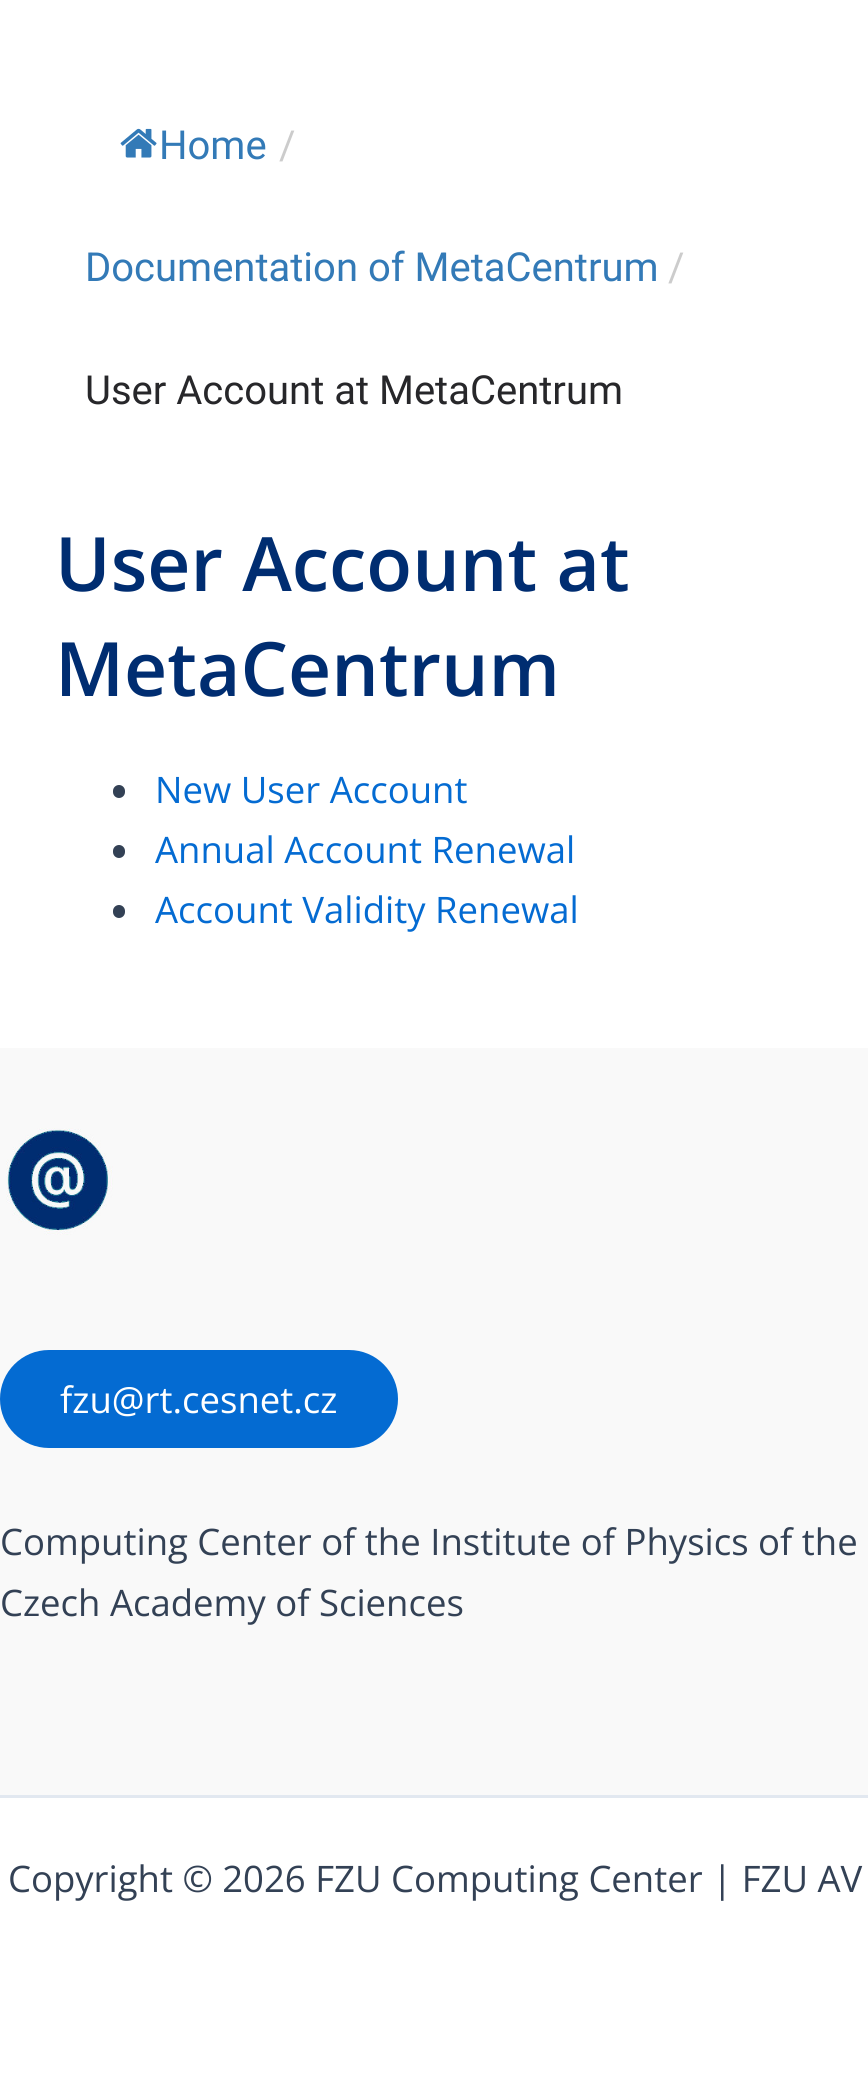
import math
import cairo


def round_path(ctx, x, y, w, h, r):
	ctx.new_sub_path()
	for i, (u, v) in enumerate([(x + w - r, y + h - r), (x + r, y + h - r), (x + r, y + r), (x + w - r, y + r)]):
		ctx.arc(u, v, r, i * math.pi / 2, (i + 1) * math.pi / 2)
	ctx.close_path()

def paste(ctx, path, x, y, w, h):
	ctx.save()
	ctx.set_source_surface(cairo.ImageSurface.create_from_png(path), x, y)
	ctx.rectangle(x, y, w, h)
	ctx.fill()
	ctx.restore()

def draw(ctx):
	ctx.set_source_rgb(1, 1, 1)
	ctx.paint()
	paste(ctx, 'media/1.png', 120, 128, 37, 30)
	ctx.select_font_face('Roboto')
	ctx.set_font_size(40)
	ctx.set_source_rgb(0.2, 0.478, 0.718)
	ctx.move_to(159, 159)
	ctx.show_text('Home')
	ctx.set_source_rgb(0.8, 0.8, 0.8)
	ctx.move_to(279, 159)
	ctx.show_text('/')
	ctx.set_source_rgb(0.2, 0.478, 0.718)
	ctx.move_to(85, 281)
	ctx.show_text('Documentation of MetaCentrum')
	ctx.set_source_rgb(0.8, 0.8, 0.8)
	ctx.move_to(668, 281)
	ctx.show_text('/')
	ctx.set_source_rgb(0.153, 0.153, 0.165)
	ctx.move_to(85, 404)
	ctx.show_text('User Account at MetaCentrum')
	ctx.select_font_face('Open Sans SemiBold')
	ctx.set_font_size(75)
	ctx.set_source_rgb(0, 0.176, 0.443)
	ctx.move_to(55, 591)
	ctx.show_text('User Account at')
	ctx.move_to(55, 696)
	ctx.show_text('MetaCentrum')
	ctx.set_source_rgb(0.2, 0.255, 0.333)
	round_path(ctx, 113, 785, 12, 13, 6)
	ctx.fill()
	ctx.select_font_face('Open Sans')
	ctx.set_font_size(36.5)
	ctx.set_source_rgb(0.016, 0.42, 0.824)
	ctx.move_to(155, 803)
	ctx.show_text('New User Account')
	ctx.set_source_rgb(0.2, 0.255, 0.333)
	round_path(ctx, 113, 845, 12, 13, 6)
	ctx.fill()
	ctx.set_source_rgb(0.016, 0.42, 0.824)
	ctx.move_to(155, 863)
	ctx.show_text('Annual Account Renewal')
	ctx.set_source_rgb(0.2, 0.255, 0.333)
	round_path(ctx, 113, 905, 12, 13, 6)
	ctx.fill()
	ctx.set_source_rgb(0.016, 0.42, 0.824)
	ctx.move_to(155, 923)
	ctx.show_text('Account Validity Renewal')
	ctx.set_source_rgb(0.976, 0.976, 0.976)
	ctx.rectangle(0, 1048, 868, 747)
	ctx.fill()
	paste(ctx, 'media/2.png', 6, 1128, 107, 107)
	ctx.set_source_rgb(0.016, 0.42, 0.824)
	round_path(ctx, 0, 1350, 398, 98, 49)
	ctx.fill()
	ctx.set_source_rgb(1, 1, 1)
	ctx.move_to(60, 1413)
	ctx.show_text('fzu@rt.cesnet.cz')
	ctx.set_source_rgb(0.2, 0.255, 0.333)
	ctx.move_to(0, 1555)
	ctx.show_text('Computing Center of the Institute of Physics of the')
	ctx.move_to(0, 1616)
	ctx.show_text('Czech Academy of Sciences')
	ctx.set_source_rgb(0.886, 0.91, 0.941)
	ctx.rectangle(0, 1795, 868, 3)
	ctx.fill()
	ctx.set_source_rgb(0.2, 0.255, 0.333)
	ctx.move_to(8, 1892)
	ctx.show_text('Copyright © 2026 FZU Computing Center | FZU AV')


surface = cairo.ImageSurface(cairo.FORMAT_RGB24, 868, 2082)
ctx = cairo.Context(surface)
options = cairo.FontOptions()
options.set_hint_metrics(cairo.HINT_METRICS_OFF)
options.set_hint_style(cairo.HINT_STYLE_NONE)
ctx.set_font_options(options)
ctx.set_miter_limit(4)
draw(ctx)
surface.write_to_png('image.png')
